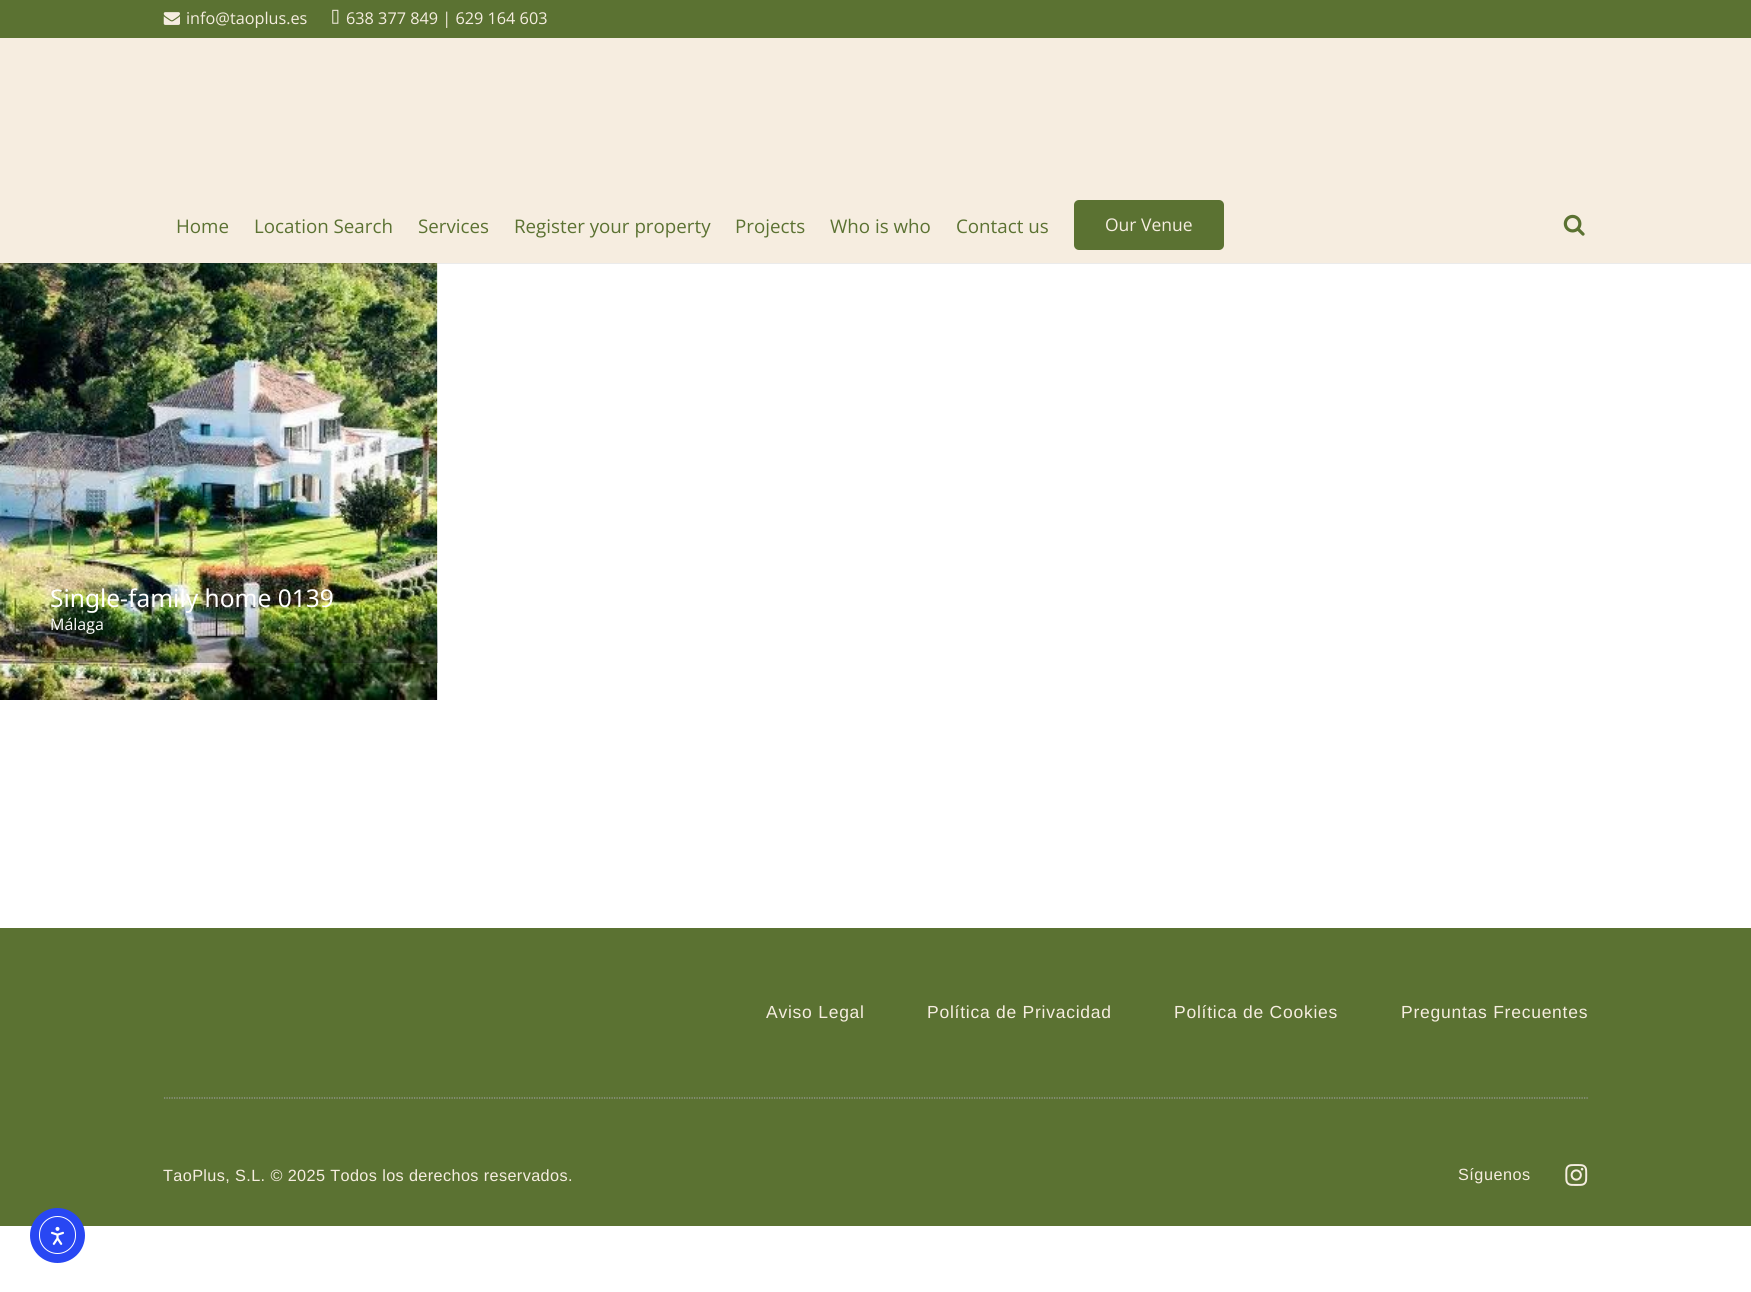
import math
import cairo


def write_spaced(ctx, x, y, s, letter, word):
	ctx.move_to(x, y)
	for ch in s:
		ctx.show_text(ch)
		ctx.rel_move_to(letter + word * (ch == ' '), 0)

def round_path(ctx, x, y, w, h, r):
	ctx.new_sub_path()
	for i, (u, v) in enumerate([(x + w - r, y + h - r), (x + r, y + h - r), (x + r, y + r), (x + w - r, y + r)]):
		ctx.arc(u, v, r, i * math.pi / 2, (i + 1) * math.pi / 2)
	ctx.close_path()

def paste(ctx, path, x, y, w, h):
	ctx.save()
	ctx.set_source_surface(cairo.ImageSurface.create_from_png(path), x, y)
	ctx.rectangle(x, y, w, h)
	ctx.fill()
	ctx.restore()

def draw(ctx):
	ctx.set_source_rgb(1, 1, 1)
	ctx.paint()
	ctx.set_source_rgb(0.357, 0.447, 0.196)
	ctx.rectangle(0, 0, 1751, 38)
	ctx.fill()
	paste(ctx, 'media/1.png', 163, 12, 17, 13)
	ctx.select_font_face('Open Sans')
	ctx.set_font_size(16.25)
	ctx.set_source_rgb(0.961, 0.929, 0.878)
	ctx.move_to(186, 24)
	ctx.show_text('info@taoplus.es')
	paste(ctx, 'media/2.png', 332, 9, 7, 15)
	ctx.move_to(346, 24)
	ctx.show_text('638 377 849 | 629 164 603')
	ctx.rectangle(0, 38, 1751, 225)
	ctx.fill()
	paste(ctx, 'media/4.png', 0, 263, 438, 437)
	ctx.set_source_rgba(0, 0, 0, 0.08)
	ctx.rectangle(0, 263, 1751, 1)
	ctx.fill()
	ctx.set_font_size(18.75)
	ctx.set_source_rgb(0.357, 0.447, 0.196)
	for x, y, s in [
		(176, 233, 'Home'),
		(254, 233, 'Location Search'),
		(418, 233, 'Services'),
		(514, 233, 'Register your property'),
		(735, 233, 'Projects'),
		(830, 233, 'Who is who'),
		(956, 233, 'Contact us'),
	]:
		ctx.move_to(x, y)
		ctx.show_text(s)
	round_path(ctx, 1074, 200, 150, 50, 5)
	ctx.fill()
	ctx.set_font_size(17.5)
	ctx.set_source_rgb(0.961, 0.929, 0.878)
	ctx.move_to(1105, 231)
	ctx.show_text('Our Venue')
	paste(ctx, 'media/3.png', 1563, 214, 22, 22)
	gradient = cairo.LinearGradient(231, 613, 231, 663)
	gradient.add_color_stop_rgba(0, 0, 0, 0, 0)
	gradient.add_color_stop_rgba(1, 0, 0, 0, 0.3)
	ctx.set_source(gradient)
	ctx.rectangle(25, 617, 413, 46)
	ctx.fill()
	ctx.select_font_face('Noto Sans')
	ctx.set_font_size(24.5)
	ctx.set_source_rgb(1, 1, 1)
	ctx.move_to(50, 607)
	ctx.show_text('Single-family home 0139')
	ctx.select_font_face('Open Sans')
	ctx.set_font_size(16)
	ctx.move_to(50, 630)
	ctx.show_text('Málaga')
	ctx.set_source_rgb(0.357, 0.447, 0.196)
	ctx.rectangle(0, 928, 1751, 298)
	ctx.fill()
	ctx.new_path()
	ctx.move_to(164, 1098)
	ctx.line_to(1589, 1098)
	ctx.set_source_rgb(0.608, 0.608, 0.608)
	ctx.set_line_width(1.2)
	ctx.set_dash([1.25, 1.25])
	ctx.stroke()
	ctx.select_font_face('Liberation Sans')
	ctx.set_font_size(17.5)
	ctx.set_source_rgb(0.961, 0.929, 0.878)
	for x, y, s in [
		(766, 1018, 'Aviso Legal'),
		(927, 1018, 'Política de Privacidad'),
		(1174, 1018, 'Política de Cookies'),
		(1401, 1018, 'Preguntas Frecuentes'),
	]:
		write_spaced(ctx, x, y, s, 0.75, 0)
	ctx.set_font_size(16.25)
	write_spaced(ctx, 163, 1181, 'TaoPlus, S.L. © 2025 Todos los derechos reservados.', 0.38, 0)
	write_spaced(ctx, 1458, 1180, 'Síguenos', 0.5, 0)
	paste(ctx, 'media/5.png', 1565, 1164, 23, 22)
	ctx.set_source_rgb(0.157, 0.278, 0.953)
	ctx.arc(57.5, 1235.5, 27.5, 0, 2 * math.pi)
	ctx.fill()
	round_path(ctx, 39.5, 1216.5, 36, 37, 18)
	ctx.set_source_rgb(1, 1, 1)
	ctx.set_line_width(1)
	ctx.set_dash([])
	ctx.stroke()
	paste(ctx, 'media/6.png', 51, 1226, 13, 19)


surface = cairo.ImageSurface(cairo.FORMAT_RGB24, 1751, 1292)
ctx = cairo.Context(surface)
options = cairo.FontOptions()
options.set_hint_metrics(cairo.HINT_METRICS_OFF)
options.set_hint_style(cairo.HINT_STYLE_NONE)
ctx.set_font_options(options)
ctx.set_miter_limit(4)
draw(ctx)
surface.write_to_png('image.png')
